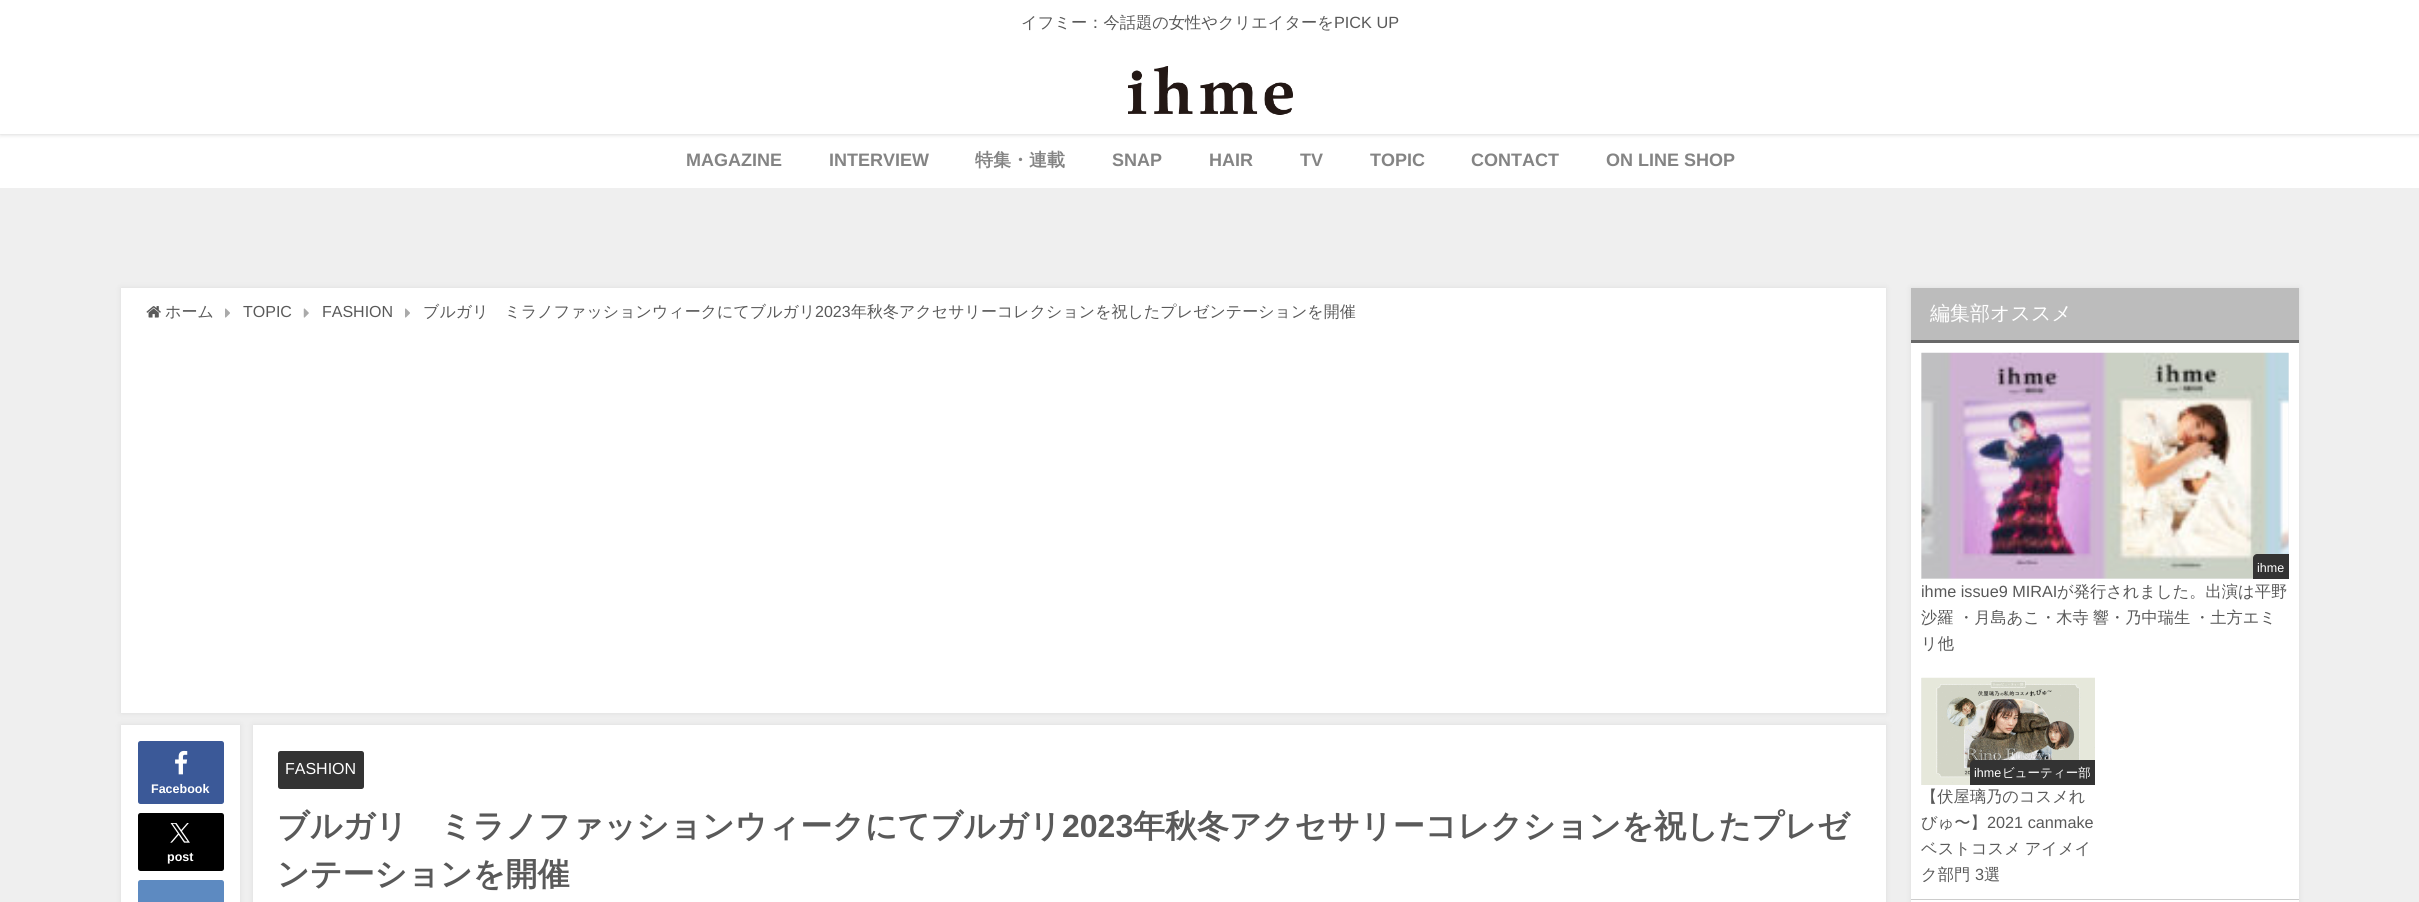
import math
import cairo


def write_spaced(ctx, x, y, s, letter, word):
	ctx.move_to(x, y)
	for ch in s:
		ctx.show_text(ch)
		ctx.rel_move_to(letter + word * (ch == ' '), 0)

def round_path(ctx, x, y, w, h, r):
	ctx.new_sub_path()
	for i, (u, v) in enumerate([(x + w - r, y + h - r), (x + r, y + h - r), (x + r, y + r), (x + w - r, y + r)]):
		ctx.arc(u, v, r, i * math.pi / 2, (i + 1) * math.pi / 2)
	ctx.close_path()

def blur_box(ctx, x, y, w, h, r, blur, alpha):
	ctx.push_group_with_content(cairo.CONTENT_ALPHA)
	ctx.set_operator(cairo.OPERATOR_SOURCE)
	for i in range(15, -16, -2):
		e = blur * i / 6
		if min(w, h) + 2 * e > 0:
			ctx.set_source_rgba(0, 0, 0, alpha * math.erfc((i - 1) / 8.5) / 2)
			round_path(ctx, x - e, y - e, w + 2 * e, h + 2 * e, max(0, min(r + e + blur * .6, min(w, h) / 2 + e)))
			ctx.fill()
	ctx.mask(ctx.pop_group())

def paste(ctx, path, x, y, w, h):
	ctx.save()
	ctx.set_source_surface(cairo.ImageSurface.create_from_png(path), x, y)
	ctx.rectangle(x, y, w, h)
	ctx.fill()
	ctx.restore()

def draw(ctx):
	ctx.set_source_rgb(0.937, 0.937, 0.937)
	ctx.paint()
	ctx.set_source_rgb(1, 1, 1)
	ctx.rectangle(0, 134, 2419, 54)
	ctx.fill()
	ctx.set_source_rgb(0, 0, 0)
	blur_box(ctx, 0, 0, 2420, 134, 0, 2.5, 0.2)
	ctx.set_source_rgb(1, 1, 1)
	ctx.rectangle(0, 0, 2419, 134)
	ctx.fill()
	ctx.select_font_face('WenQuanYi Zen Hei Medium')
	ctx.set_font_size(16.25)
	ctx.set_source_rgb(0.349, 0.349, 0.349)
	ctx.move_to(1021, 28)
	ctx.show_text('イフミー：今話題の女性やクリエイターを')
	ctx.select_font_face('Liberation Sans')
	ctx.move_to(1334, 28)
	ctx.show_text('PICK UP')
	paste(ctx, 'media/1.png', 1128, 66, 165, 49)
	ctx.select_font_face('Liberation Sans', cairo.FONT_SLANT_NORMAL, cairo.FONT_WEIGHT_BOLD)
	ctx.set_font_size(18)
	ctx.set_source_rgb(0.518, 0.518, 0.518)
	ctx.move_to(686, 166)
	ctx.show_text('MAGAZINE')
	ctx.move_to(829, 166)
	ctx.show_text('INTERVIEW')
	ctx.select_font_face('WenQuanYi Zen Hei', cairo.FONT_SLANT_NORMAL, cairo.FONT_WEIGHT_BOLD)
	ctx.move_to(975, 166)
	ctx.show_text('特集・連載')
	ctx.select_font_face('Liberation Sans', cairo.FONT_SLANT_NORMAL, cairo.FONT_WEIGHT_BOLD)
	for x, y, s in [
		(1112, 166, 'SNAP'),
		(1209, 166, 'HAIR'),
		(1300, 166, 'TV'),
		(1370, 166, 'TOPIC'),
		(1471, 166, 'CONTACT'),
		(1606, 166, 'ON LINE SHOP'),
	]:
		ctx.move_to(x, y)
		ctx.show_text(s)
	ctx.set_source_rgb(0.588, 0.588, 0.588)
	blur_box(ctx, 121, 288, 1765, 425, 0, 3, 0.2)
	ctx.set_source_rgb(1, 1, 1)
	ctx.rectangle(121, 288, 1765, 425)
	ctx.fill()
	paste(ctx, 'media/2.png', 146, 306, 15, 12)
	ctx.select_font_face('WenQuanYi Zen Hei Medium')
	ctx.set_font_size(16)
	ctx.set_source_rgb(0.349, 0.349, 0.349)
	ctx.move_to(165, 317)
	ctx.show_text('ホーム')
	paste(ctx, 'media/3.png', 225, 308, 5, 10)
	ctx.select_font_face('Liberation Sans')
	ctx.move_to(243, 317)
	ctx.show_text('TOPIC')
	paste(ctx, 'media/4.png', 303, 308, 6, 10)
	ctx.move_to(322, 317)
	ctx.show_text('FASHION')
	paste(ctx, 'media/3.png', 405, 308, 5, 10)
	ctx.select_font_face('WenQuanYi Zen Hei Medium')
	ctx.move_to(423, 317)
	ctx.show_text('ブルガリ　ミラノファッションウィークにてブルガリ')
	ctx.select_font_face('Liberation Sans')
	ctx.move_to(815, 317)
	ctx.show_text('2023')
	ctx.select_font_face('WenQuanYi Zen Hei Medium')
	ctx.move_to(851, 317)
	ctx.show_text('年秋冬アクセサリーコレクションを祝したプレゼンテーションを開催')
	ctx.set_source_rgb(0.588, 0.588, 0.588)
	blur_box(ctx, 121, 725, 119, 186, 0, 3, 0.2)
	ctx.set_source_rgb(1, 1, 1)
	ctx.rectangle(121, 725, 119, 177)
	ctx.fill()
	ctx.set_source_rgb(0.231, 0.349, 0.596)
	round_path(ctx, 138, 741, 86, 63, 2.5)
	ctx.fill()
	paste(ctx, 'media/5.png', 175, 750, 13, 25)
	ctx.select_font_face('Liberation Sans', cairo.FONT_SLANT_NORMAL, cairo.FONT_WEIGHT_BOLD)
	ctx.set_font_size(12.5)
	ctx.set_source_rgb(1, 1, 1)
	ctx.move_to(151, 793)
	ctx.show_text('Facebook')
	ctx.set_source_rgb(0, 0, 0)
	round_path(ctx, 138, 813, 86, 58, 2.5)
	ctx.fill()
	paste(ctx, 'media/6.png', 170, 823, 20, 20)
	ctx.set_source_rgb(1, 1, 1)
	ctx.move_to(167, 861)
	ctx.show_text('post')
	ctx.set_source_rgb(0.365, 0.541, 0.757)
	round_path(ctx, 138, 880, 86, 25, 2.5)
	ctx.fill()
	ctx.set_source_rgb(0.588, 0.588, 0.588)
	blur_box(ctx, 253, 725, 1633, 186, 0, 3, 0.2)
	ctx.set_source_rgb(1, 1, 1)
	ctx.rectangle(253, 725, 1633, 177)
	ctx.fill()
	ctx.set_source_rgb(0.2, 0.2, 0.2)
	round_path(ctx, 278, 751, 86, 38, 2.5)
	ctx.fill()
	ctx.select_font_face('Liberation Sans')
	ctx.set_font_size(16)
	ctx.set_source_rgb(1, 1, 1)
	ctx.move_to(285, 774)
	ctx.show_text('FASHION')
	ctx.select_font_face('WenQuanYi Zen Hei', cairo.FONT_SLANT_NORMAL, cairo.FONT_WEIGHT_BOLD)
	ctx.set_font_size(32)
	ctx.set_source_rgb(0.349, 0.349, 0.349)
	ctx.move_to(277, 837)
	ctx.show_text('ブルガリ　ミラノファッションウィークにてブルガリ')
	ctx.select_font_face('Liberation Sans', cairo.FONT_SLANT_NORMAL, cairo.FONT_WEIGHT_BOLD)
	ctx.move_to(1062, 837)
	ctx.show_text('2023')
	ctx.select_font_face('WenQuanYi Zen Hei', cairo.FONT_SLANT_NORMAL, cairo.FONT_WEIGHT_BOLD)
	ctx.move_to(1133, 837)
	ctx.show_text('年秋冬アクセサリーコレクションを祝したプレゼ')
	ctx.move_to(277, 885)
	ctx.show_text('ンテーションを開催')
	ctx.set_source_rgb(0.588, 0.588, 0.588)
	blur_box(ctx, 1911, 288, 388, 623, 0, 3, 0.2)
	ctx.set_source_rgb(1, 1, 1)
	ctx.rectangle(1911, 343, 388, 559)
	ctx.fill()
	ctx.set_source_rgb(0.737, 0.737, 0.737)
	ctx.rectangle(1911, 288, 388, 52)
	ctx.fill()
	ctx.set_source_rgb(0.408, 0.408, 0.408)
	ctx.rectangle(1911, 340, 388, 3)
	ctx.fill()
	ctx.select_font_face('WenQuanYi Zen Hei Medium')
	ctx.set_font_size(20)
	ctx.set_source_rgb(1, 1, 1)
	ctx.move_to(1930, 320)
	ctx.show_text('編集部オススメ')
	ctx.set_source_rgb(0.933, 0.933, 0.933)
	ctx.rectangle(1921, 353, 368, 226)
	ctx.fill()
	paste(ctx, 'media/7.png', 1921, 352, 368, 227)
	ctx.set_source_rgb(0.2, 0.2, 0.2)
	ctx.new_path()
	ctx.move_to(2257, 554)
	ctx.line_to(2289, 554)
	ctx.line_to(2289, 579)
	ctx.line_to(2253, 579)
	ctx.line_to(2253, 558)
	ctx.curve_to(2253, 556, 2255, 554, 2257, 554)
	ctx.close_path()
	ctx.fill()
	ctx.select_font_face('Liberation Sans')
	ctx.set_font_size(12.5)
	ctx.set_source_rgb(1, 1, 1)
	ctx.move_to(2257, 572)
	ctx.show_text('ihme')
	ctx.set_font_size(16.25)
	ctx.set_source_rgb(0.349, 0.349, 0.349)
	ctx.move_to(1921, 597)
	ctx.show_text('ihme issue9 MIRAI')
	ctx.select_font_face('WenQuanYi Zen Hei Medium')
	ctx.move_to(2057, 597)
	ctx.show_text('が発行されました。出演は平野')
	ctx.move_to(1921, 623)
	ctx.show_text('沙羅')
	write_spaced(ctx, 1958, 623, '・月島あこ・木寺 響・乃中瑞生', 0, -1)
	ctx.move_to(2194, 623)
	ctx.show_text('・土方エミ')
	ctx.move_to(1921, 649)
	ctx.show_text('リ他')
	ctx.set_source_rgb(0.933, 0.933, 0.933)
	ctx.rectangle(1921, 678, 1, 107)
	ctx.fill()
	paste(ctx, 'media/8.png', 1921, 677, 174, 108)
	ctx.set_source_rgb(0.2, 0.2, 0.2)
	ctx.new_path()
	ctx.move_to(1974, 760)
	ctx.line_to(2095, 760)
	ctx.line_to(2095, 785)
	ctx.line_to(1970, 785)
	ctx.line_to(1970, 764)
	ctx.curve_to(1970, 762, 1972, 760, 1974, 760)
	ctx.close_path()
	ctx.fill()
	ctx.select_font_face('Liberation Sans')
	ctx.set_font_size(12.5)
	ctx.set_source_rgb(1, 1, 1)
	ctx.move_to(1974, 777)
	ctx.show_text('ihme')
	ctx.select_font_face('WenQuanYi Zen Hei Medium')
	ctx.move_to(2002, 777)
	ctx.show_text('ビューティー部')
	ctx.set_font_size(16.25)
	ctx.set_source_rgb(0.349, 0.349, 0.349)
	ctx.move_to(1921, 802)
	ctx.show_text('【伏屋璃乃のコスメれ')
	ctx.move_to(1921, 828)
	ctx.show_text('びゅ〜】')
	ctx.select_font_face('Liberation Sans')
	ctx.move_to(1987, 828)
	ctx.show_text('2021 canmake')
	ctx.select_font_face('WenQuanYi Zen Hei Medium')
	write_spaced(ctx, 1921, 854, 'ベストコスメ アイメイ', 0, -1)
	ctx.move_to(1921, 880)
	ctx.show_text('ク部門')
	ctx.select_font_face('Liberation Sans')
	ctx.move_to(1975, 880)
	ctx.show_text('3')
	ctx.select_font_face('WenQuanYi Zen Hei Medium')
	ctx.move_to(1984, 880)
	ctx.show_text('選')
	ctx.set_source_rgb(0.8, 0.8, 0.8)
	ctx.rectangle(1911, 899, 388, 1)
	ctx.fill()


surface = cairo.ImageSurface(cairo.FORMAT_RGB24, 2419, 902)
ctx = cairo.Context(surface)
options = cairo.FontOptions()
options.set_hint_metrics(cairo.HINT_METRICS_OFF)
options.set_hint_style(cairo.HINT_STYLE_NONE)
ctx.set_font_options(options)
ctx.set_miter_limit(4)
draw(ctx)
surface.write_to_png('image.png')
